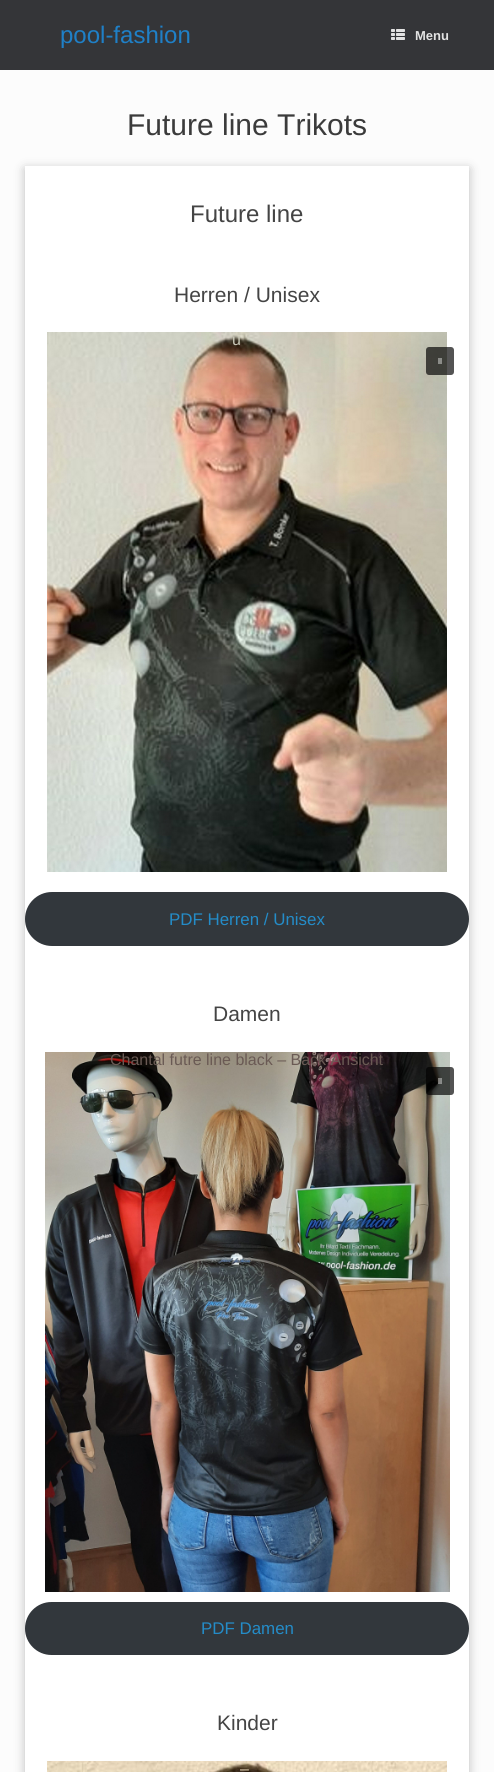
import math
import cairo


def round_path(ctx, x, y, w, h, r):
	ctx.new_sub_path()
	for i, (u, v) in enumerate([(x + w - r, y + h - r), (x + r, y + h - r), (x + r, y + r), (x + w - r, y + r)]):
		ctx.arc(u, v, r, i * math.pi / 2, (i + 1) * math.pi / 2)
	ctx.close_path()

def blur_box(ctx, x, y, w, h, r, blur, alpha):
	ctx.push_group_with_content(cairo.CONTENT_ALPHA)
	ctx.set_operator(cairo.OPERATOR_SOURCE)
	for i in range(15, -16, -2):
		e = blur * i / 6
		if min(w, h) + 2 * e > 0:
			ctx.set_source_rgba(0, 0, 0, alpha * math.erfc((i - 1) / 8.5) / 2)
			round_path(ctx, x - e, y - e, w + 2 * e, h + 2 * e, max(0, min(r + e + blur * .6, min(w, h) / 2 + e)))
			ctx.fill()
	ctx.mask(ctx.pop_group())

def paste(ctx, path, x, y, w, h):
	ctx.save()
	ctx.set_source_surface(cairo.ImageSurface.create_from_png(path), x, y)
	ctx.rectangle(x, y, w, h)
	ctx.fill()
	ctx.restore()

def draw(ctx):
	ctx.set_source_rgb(0.988, 0.988, 0.988)
	ctx.paint()
	ctx.set_source_rgb(0.204, 0.208, 0.22)
	ctx.rectangle(0, 0, 494, 70)
	ctx.fill()
	ctx.select_font_face('Liberation Sans')
	ctx.set_font_size(24)
	ctx.set_source_rgb(0.122, 0.502, 0.78)
	ctx.move_to(60, 43)
	ctx.show_text('pool-fashion')
	paste(ctx, 'media/1.png', 391, 29, 14, 11)
	ctx.select_font_face('Liberation Sans', cairo.FONT_SLANT_NORMAL, cairo.FONT_WEIGHT_BOLD)
	ctx.set_font_size(13)
	ctx.set_source_rgb(0.886, 0.886, 0.886)
	ctx.move_to(415, 40)
	ctx.show_text('Menu')
	ctx.select_font_face('Liberation Sans')
	ctx.set_font_size(30)
	ctx.set_source_rgb(0.231, 0.231, 0.231)
	ctx.move_to(127, 135)
	ctx.show_text('Future line Trikots')
	ctx.set_source_rgb(0, 0, 0)
	blur_box(ctx, 25, 169, 444, 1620, 0, 5.5, 0.25)
	ctx.set_source_rgb(1, 1, 1)
	ctx.rectangle(25, 166, 444, 1606)
	ctx.fill()
	ctx.set_font_size(24)
	ctx.set_source_rgb(0.267, 0.267, 0.267)
	ctx.move_to(190, 222)
	ctx.show_text('Future line')
	ctx.set_font_size(21)
	ctx.move_to(174, 302)
	ctx.show_text('Herren / Unisex')
	paste(ctx, 'media/2.png', 47, 332, 400, 540)
	ctx.set_font_size(16)
	ctx.set_source_rgb(0.78, 0.773, 0.714)
	ctx.move_to(232, 345)
	ctx.show_text('u')
	ctx.set_source_rgba(0, 0, 0, 0.67)
	round_path(ctx, 426, 347, 28, 28, 3)
	ctx.fill()
	ctx.set_source_rgb(0.545, 0.549, 0.533)
	ctx.rectangle(438, 358, 4, 6)
	ctx.fill()
	ctx.set_source_rgb(0.196, 0.216, 0.235)
	round_path(ctx, 25, 892, 444, 54, 27)
	ctx.fill()
	ctx.set_font_size(16.9)
	ctx.set_source_rgb(0.141, 0.549, 0.784)
	ctx.move_to(169, 925)
	ctx.show_text('PDF Herren / Unisex')
	ctx.set_font_size(21)
	ctx.set_source_rgb(0.267, 0.267, 0.267)
	ctx.move_to(213, 1021)
	ctx.show_text('Damen')
	paste(ctx, 'media/3.png', 45, 1052, 405, 540)
	ctx.set_font_size(16)
	ctx.set_source_rgb(0.416, 0.353, 0.329)
	ctx.move_to(110, 1065)
	ctx.show_text('Chantal futre line black – Back Ansicht')
	ctx.set_source_rgba(0, 0, 0, 0.67)
	round_path(ctx, 426, 1067, 28, 28, 3)
	ctx.fill()
	ctx.set_source_rgba(1, 1, 1, 0.4)
	ctx.rectangle(438, 1078, 4, 6)
	ctx.fill()
	ctx.set_source_rgb(0.196, 0.216, 0.235)
	round_path(ctx, 25, 1602, 444, 53, 26.5)
	ctx.fill()
	ctx.set_font_size(16.9)
	ctx.set_source_rgb(0.141, 0.549, 0.784)
	ctx.move_to(201, 1634)
	ctx.show_text('PDF Damen')
	ctx.set_font_size(21)
	ctx.set_source_rgb(0.267, 0.267, 0.267)
	ctx.move_to(217, 1730)
	ctx.show_text('Kinder')
	paste(ctx, 'media/4.png', 47, 1761, 400, 11)
	ctx.set_font_size(16)
	ctx.set_source_rgb(0.863, 0.796, 0.686)
	ctx.move_to(240, 1774)
	ctx.show_text('–')


surface = cairo.ImageSurface(cairo.FORMAT_RGB24, 494, 1772)
ctx = cairo.Context(surface)
options = cairo.FontOptions()
options.set_hint_metrics(cairo.HINT_METRICS_OFF)
options.set_hint_style(cairo.HINT_STYLE_NONE)
ctx.set_font_options(options)
ctx.set_miter_limit(4)
draw(ctx)
surface.write_to_png('image.png')
